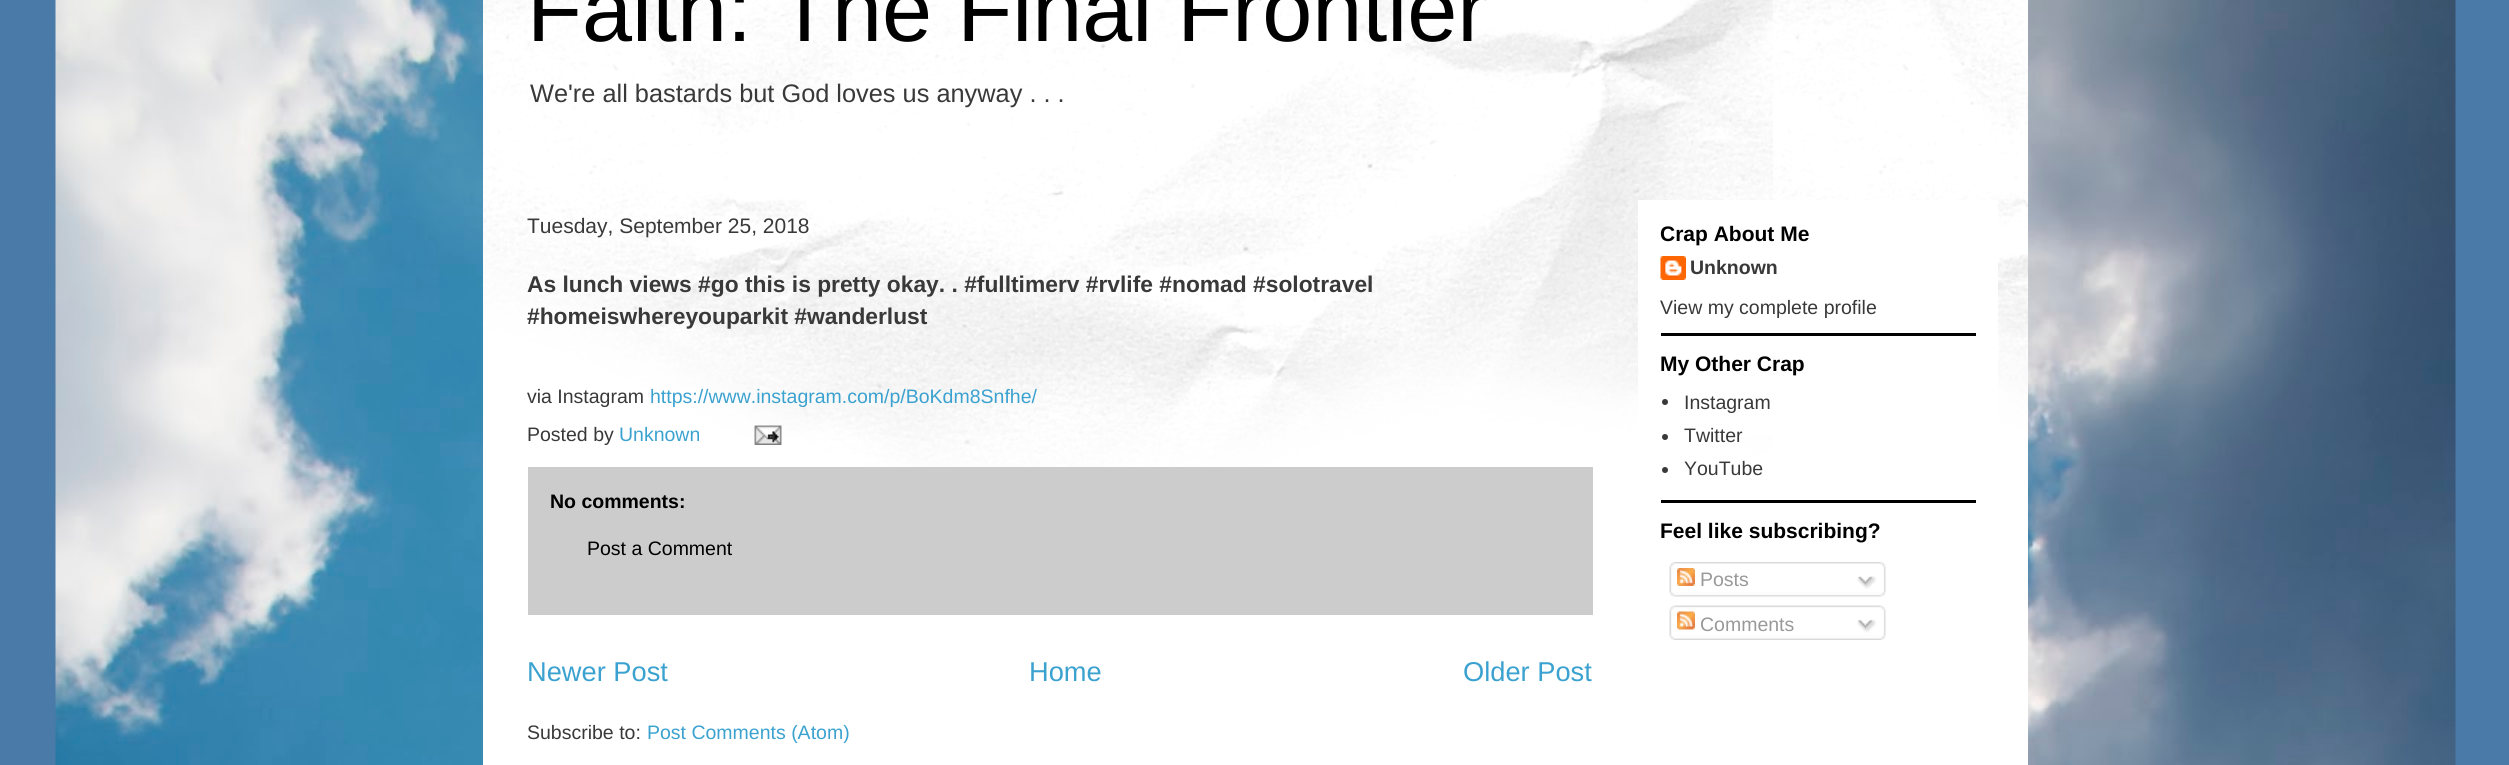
import math
import cairo


def paste(ctx, path, x, y, w, h):
	ctx.save()
	ctx.set_source_surface(cairo.ImageSurface.create_from_png(path), x, y)
	ctx.rectangle(x, y, w, h)
	ctx.fill()
	ctx.restore()

def draw(ctx):
	ctx.set_source_rgb(0.29, 0.478, 0.659)
	ctx.paint()
	paste(ctx, 'media/1.png', 55, 0, 2401, 765)
	ctx.set_source_rgb(1, 1, 1)
	ctx.rectangle(483, 0, 1545, 765)
	ctx.fill()
	paste(ctx, 'media/2.png', 483, 0, 1545, 467)
	ctx.select_font_face('Liberation Sans')
	ctx.set_font_size(90)
	ctx.set_source_rgb(0, 0, 0)
	ctx.move_to(527, 41)
	ctx.show_text('Faith: The Final Frontier')
	ctx.set_font_size(25.35)
	ctx.set_source_rgb(0.224, 0.224, 0.224)
	ctx.move_to(530, 102)
	ctx.show_text('We\'re all bastards but God loves us anyway . . .')
	ctx.set_source_rgb(1, 1, 1)
	ctx.rectangle(1638, 200, 360, 236)
	ctx.fill()
	ctx.set_font_size(21)
	ctx.set_source_rgb(0.224, 0.224, 0.224)
	ctx.move_to(527, 233)
	ctx.show_text('Tuesday, September 25, 2018')
	ctx.select_font_face('Liberation Sans', cairo.FONT_SLANT_NORMAL, cairo.FONT_WEIGHT_BOLD)
	ctx.set_font_size(22.8)
	ctx.move_to(527, 292)
	ctx.show_text('As lunch views #go this is pretty okay. . #fulltimerv #rvlife #nomad #solotravel')
	ctx.move_to(527, 324)
	ctx.show_text('#homeiswhereyouparkit #wanderlust')
	ctx.select_font_face('Liberation Sans')
	ctx.set_font_size(19.5)
	ctx.move_to(527, 403)
	ctx.show_text('via Instagram')
	ctx.set_source_rgb(0.231, 0.635, 0.816)
	ctx.move_to(650, 403)
	ctx.show_text('https://www.instagram.com/p/BoKdm8Snfhe/')
	ctx.set_source_rgb(0.224, 0.224, 0.224)
	ctx.move_to(527, 441)
	ctx.show_text('Posted by')
	ctx.set_source_rgb(0.231, 0.635, 0.816)
	ctx.move_to(619, 441)
	ctx.show_text('Unknown')
	paste(ctx, 'media/3.png', 754, 425, 28, 20)
	ctx.set_source_rgb(0.8, 0.8, 0.8)
	ctx.rectangle(528, 467, 1065, 148)
	ctx.fill()
	ctx.select_font_face('Liberation Sans', cairo.FONT_SLANT_NORMAL, cairo.FONT_WEIGHT_BOLD)
	ctx.set_source_rgb(0, 0, 0)
	ctx.move_to(550, 508)
	ctx.show_text('No comments:')
	ctx.select_font_face('Liberation Sans')
	ctx.move_to(587, 555)
	ctx.show_text('Post a Comment')
	ctx.set_font_size(27.25)
	ctx.set_source_rgb(0.231, 0.635, 0.816)
	for x, y, s in [
		(527, 681, 'Newer Post'),
		(1029, 681, 'Home'),
		(1463, 681, 'Older Post'),
	]:
		ctx.move_to(x, y)
		ctx.show_text(s)
	ctx.set_font_size(19.5)
	ctx.set_source_rgb(0.224, 0.224, 0.224)
	ctx.move_to(527, 739)
	ctx.show_text('Subscribe to:')
	ctx.set_source_rgb(0.231, 0.635, 0.816)
	ctx.move_to(647, 739)
	ctx.show_text('Post Comments (Atom)')
	ctx.set_source_rgb(0, 0, 0)
	ctx.rectangle(1661, 333, 315, 3)
	ctx.fill()
	ctx.select_font_face('Liberation Sans', cairo.FONT_SLANT_NORMAL, cairo.FONT_WEIGHT_BOLD)
	ctx.set_font_size(21)
	ctx.move_to(1660, 241)
	ctx.show_text('Crap About Me')
	paste(ctx, 'media/4.png', 1660, 256, 26, 24)
	ctx.set_font_size(19.5)
	ctx.set_source_rgb(0.224, 0.224, 0.224)
	ctx.move_to(1690, 274)
	ctx.show_text('Unknown')
	ctx.select_font_face('Liberation Sans')
	ctx.move_to(1660, 314)
	ctx.show_text('View my complete profile')
	ctx.set_source_rgb(0, 0, 0)
	ctx.rectangle(1661, 500, 315, 3)
	ctx.fill()
	ctx.select_font_face('Liberation Sans', cairo.FONT_SLANT_NORMAL, cairo.FONT_WEIGHT_BOLD)
	ctx.set_font_size(21)
	ctx.move_to(1660, 371)
	ctx.show_text('My Other Crap')
	ctx.set_source_rgb(0.224, 0.224, 0.224)
	ctx.new_path()
	ctx.arc(1665, 402, 3, 0, 2 * math.pi)
	ctx.fill()
	ctx.select_font_face('Liberation Sans')
	ctx.set_font_size(19.5)
	ctx.move_to(1684, 409)
	ctx.show_text('Instagram')
	ctx.new_path()
	ctx.arc(1665, 437, 3, 0, 2 * math.pi)
	ctx.fill()
	ctx.move_to(1684, 442)
	ctx.show_text('Twitter')
	ctx.new_path()
	ctx.arc(1665, 470, 3, 0, 2 * math.pi)
	ctx.fill()
	ctx.move_to(1684, 475)
	ctx.show_text('YouTube')
	ctx.select_font_face('Liberation Sans', cairo.FONT_SLANT_NORMAL, cairo.FONT_WEIGHT_BOLD)
	ctx.set_font_size(21)
	ctx.set_source_rgb(0, 0, 0)
	ctx.move_to(1660, 538)
	ctx.show_text('Feel like subscribing?')
	paste(ctx, 'media/5.png', 1669, 562, 217, 30)
	paste(ctx, 'media/6.png', 1677, 568, 18, 18)
	ctx.select_font_face('Liberation Sans')
	ctx.set_font_size(19.5)
	ctx.set_source_rgb(0.6, 0.6, 0.6)
	ctx.move_to(1700, 586)
	ctx.show_text('Posts')
	paste(ctx, 'media/7.png', 1857, 576, 20, 13)
	paste(ctx, 'media/8.png', 1669, 592, 217, 5)
	paste(ctx, 'media/9.png', 1669, 605, 217, 31)
	paste(ctx, 'media/10.png', 1677, 611, 18, 19)
	ctx.move_to(1700, 631)
	ctx.show_text('Comments')
	paste(ctx, 'media/11.png', 1857, 619, 20, 14)
	paste(ctx, 'media/12.png', 1669, 635, 217, 5)


surface = cairo.ImageSurface(cairo.FORMAT_RGB24, 2509, 765)
ctx = cairo.Context(surface)
options = cairo.FontOptions()
options.set_hint_metrics(cairo.HINT_METRICS_OFF)
options.set_hint_style(cairo.HINT_STYLE_NONE)
ctx.set_font_options(options)
ctx.set_miter_limit(4)
draw(ctx)
surface.write_to_png('image.png')
